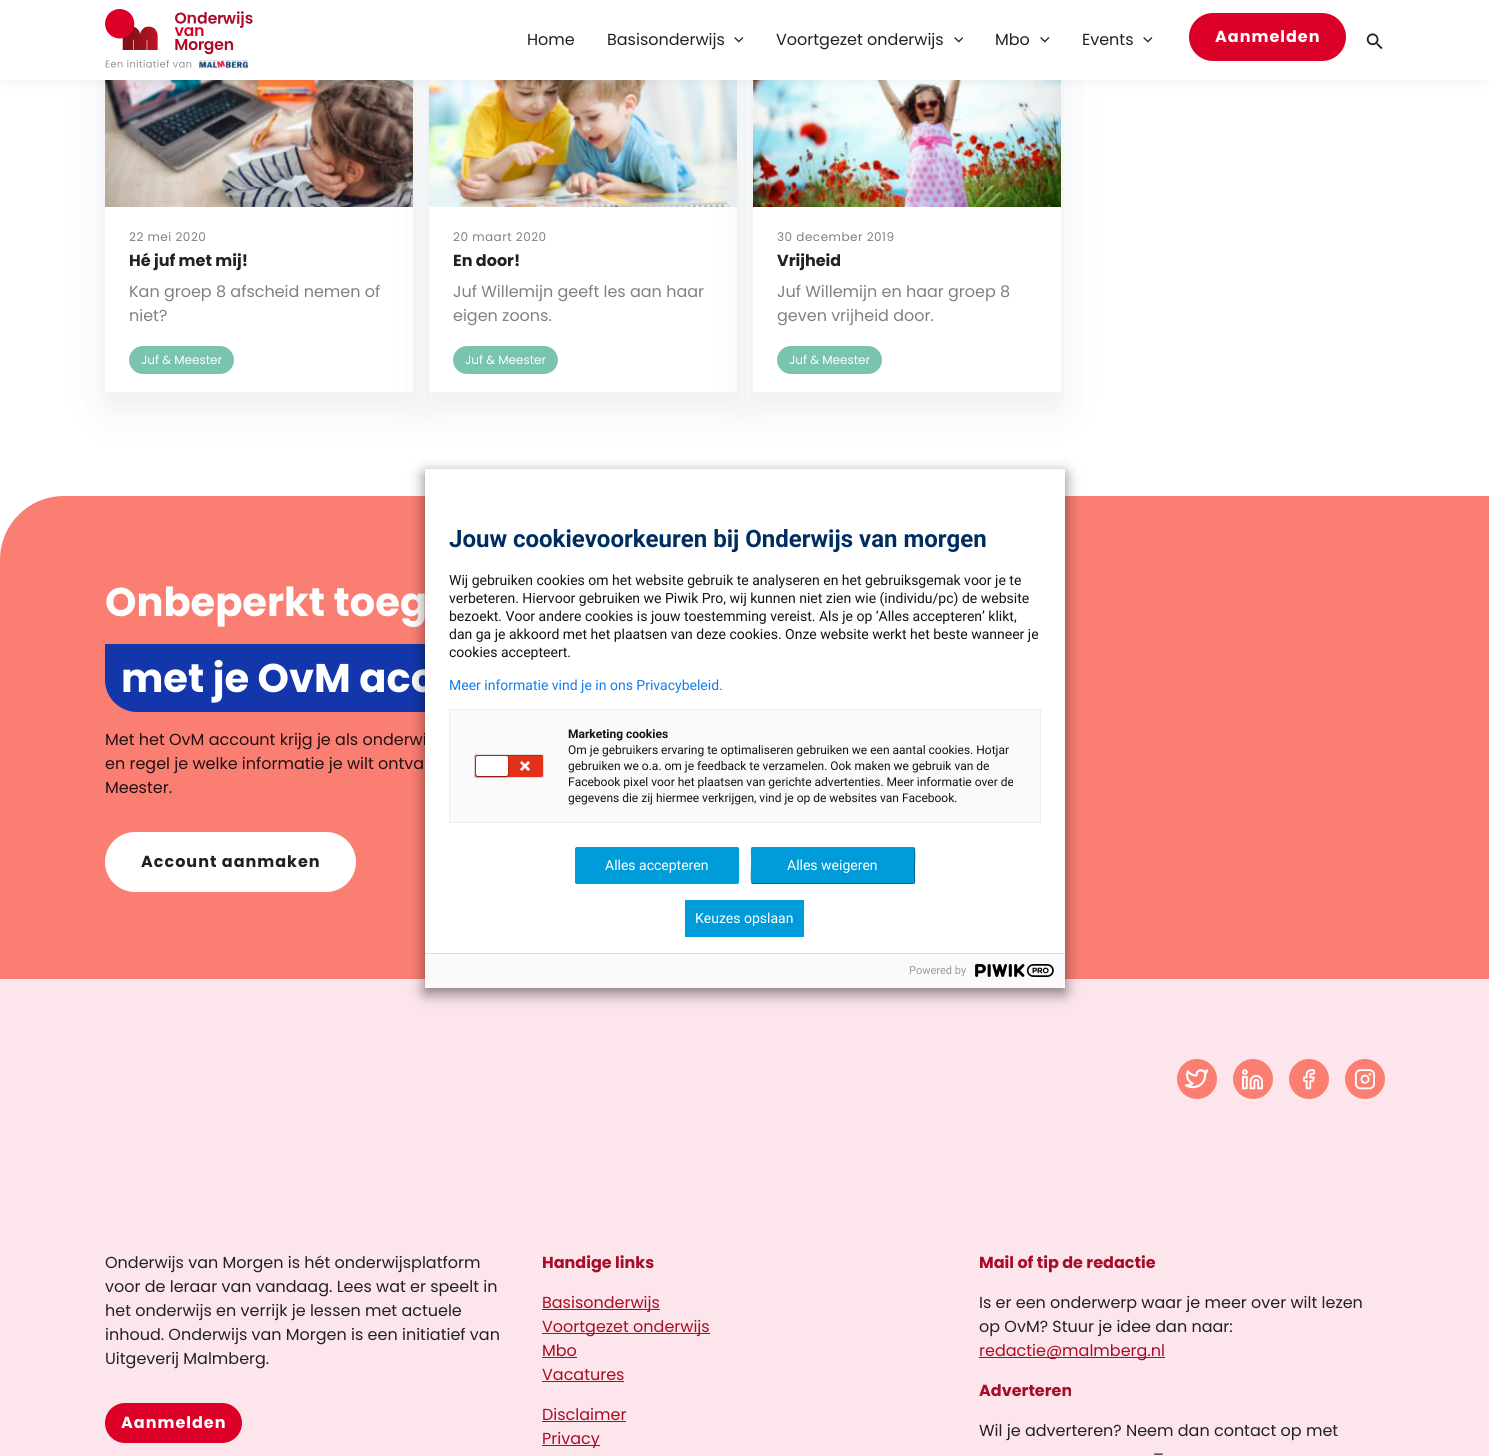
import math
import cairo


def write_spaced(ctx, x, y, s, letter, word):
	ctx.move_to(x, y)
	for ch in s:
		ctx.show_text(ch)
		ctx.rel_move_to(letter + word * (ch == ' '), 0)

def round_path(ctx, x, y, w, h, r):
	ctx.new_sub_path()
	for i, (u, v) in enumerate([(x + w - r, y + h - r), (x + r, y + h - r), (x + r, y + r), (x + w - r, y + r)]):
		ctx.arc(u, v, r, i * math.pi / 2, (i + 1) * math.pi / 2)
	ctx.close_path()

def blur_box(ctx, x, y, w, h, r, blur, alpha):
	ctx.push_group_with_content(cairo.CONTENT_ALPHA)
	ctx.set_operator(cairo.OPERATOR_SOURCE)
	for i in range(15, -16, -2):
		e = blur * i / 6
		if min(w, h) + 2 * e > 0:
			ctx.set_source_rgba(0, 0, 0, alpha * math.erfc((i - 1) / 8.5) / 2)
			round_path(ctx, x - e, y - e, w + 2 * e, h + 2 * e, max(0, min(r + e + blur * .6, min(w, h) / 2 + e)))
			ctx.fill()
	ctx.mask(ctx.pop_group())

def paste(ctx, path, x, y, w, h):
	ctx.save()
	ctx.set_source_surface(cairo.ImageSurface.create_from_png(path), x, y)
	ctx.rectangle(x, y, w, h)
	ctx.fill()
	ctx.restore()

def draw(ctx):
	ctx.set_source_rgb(1, 1, 1)
	ctx.paint()
	ctx.save()
	ctx.set_fill_rule(cairo.FILL_RULE_EVEN_ODD)
	ctx.new_path()
	ctx.move_to(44, 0)
	ctx.line_to(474, 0)
	ctx.line_to(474, 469)
	ctx.line_to(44, 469)
	ctx.close_path()
	ctx.move_to(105, 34)
	ctx.line_to(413, 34)
	ctx.line_to(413, 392)
	ctx.line_to(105, 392)
	ctx.close_path()
	ctx.clip()
	ctx.set_source_rgb(0.859, 0.867, 0.89)
	blur_box(ctx, 105, 50, 308, 358, 0, 20, 0.5)
	ctx.restore()
	paste(ctx, 'media/5.png', 105, 80, 308, 127)
	ctx.set_source_rgb(0.859, 0.867, 0.89)
	blur_box(ctx, 429, 50, 308, 358, 0, 20, 0.5)
	paste(ctx, 'media/6.png', 429, 80, 308, 127)
	ctx.set_source_rgb(1, 1, 1)
	ctx.rectangle(429, 207, 308, 185)
	ctx.fill()
	ctx.set_source_rgb(0.859, 0.867, 0.89)
	blur_box(ctx, 753, 50, 308, 358, 0, 20, 0.5)
	paste(ctx, 'media/7.png', 753, 80, 308, 127)
	ctx.set_source_rgb(0.141, 0.196, 0.259)
	blur_box(ctx, 0, 2, 1489, 80, 0, 5, 0.07)
	ctx.set_source_rgb(1, 1, 1)
	ctx.rectangle(0, 0, 1489, 80)
	ctx.fill()
	paste(ctx, 'media/1.png', 105, 9, 148, 59)
	ctx.select_font_face('Poppins')
	ctx.set_font_size(16)
	ctx.set_source_rgb(0.129, 0.129, 0.129)
	ctx.move_to(527, 45)
	ctx.show_text('Home')
	ctx.move_to(607, 45)
	ctx.show_text('Basisonderwijs')
	paste(ctx, 'media/2.png', 734, 37, 10, 6)
	ctx.move_to(776, 45)
	ctx.show_text('Voortgezet onderwijs')
	paste(ctx, 'media/3.png', 954, 37, 9, 6)
	ctx.move_to(995, 45)
	ctx.show_text('Mbo')
	paste(ctx, 'media/2.png', 1040, 37, 10, 6)
	ctx.move_to(1082, 45)
	ctx.show_text('Events')
	paste(ctx, 'media/2.png', 1143, 37, 10, 6)
	ctx.set_source_rgb(0.863, 0, 0.157)
	round_path(ctx, 1189, 13, 157, 48, 24)
	ctx.fill()
	ctx.select_font_face('Poppins', cairo.FONT_SLANT_NORMAL, cairo.FONT_WEIGHT_BOLD)
	ctx.set_source_rgb(1, 1, 1)
	write_spaced(ctx, 1215, 42, 'Aanmelden', 1, 0)
	paste(ctx, 'media/4.png', 1366, 33, 17, 17)
	ctx.select_font_face('Poppins')
	ctx.set_font_size(12)
	ctx.set_source_rgb(0.502, 0.502, 0.502)
	write_spaced(ctx, 129, 241, '22 mei 2020', 0.5, 0)
	ctx.select_font_face('Poppins', cairo.FONT_SLANT_NORMAL, cairo.FONT_WEIGHT_BOLD)
	ctx.set_font_size(16)
	ctx.set_source_rgb(0.129, 0.129, 0.129)
	ctx.move_to(129, 266)
	ctx.show_text('Hé juf met mij!')
	ctx.select_font_face('Poppins')
	ctx.set_source_rgb(0.502, 0.502, 0.502)
	ctx.move_to(129, 297)
	ctx.show_text('Kan groep 8 afscheid nemen of')
	ctx.move_to(129, 321)
	ctx.show_text('niet?')
	ctx.set_source_rgb(0.478, 0.769, 0.686)
	round_path(ctx, 129, 346, 105, 28, 14)
	ctx.fill()
	ctx.set_font_size(12)
	ctx.set_source_rgb(1, 1, 1)
	ctx.move_to(141, 364)
	ctx.show_text('Juf & Meester')
	ctx.set_source_rgb(0.502, 0.502, 0.502)
	write_spaced(ctx, 453, 241, '20 maart 2020', 0.5, 0)
	ctx.select_font_face('Poppins', cairo.FONT_SLANT_NORMAL, cairo.FONT_WEIGHT_BOLD)
	ctx.set_font_size(16)
	ctx.set_source_rgb(0.129, 0.129, 0.129)
	ctx.move_to(453, 266)
	ctx.show_text('En door!')
	ctx.select_font_face('Poppins')
	ctx.set_source_rgb(0.502, 0.502, 0.502)
	ctx.move_to(453, 297)
	ctx.show_text('Juf Willemijn geeft les aan haar')
	ctx.move_to(453, 321)
	ctx.show_text('eigen zoons.')
	ctx.set_source_rgb(0.478, 0.769, 0.686)
	round_path(ctx, 453, 346, 105, 28, 14)
	ctx.fill()
	ctx.set_font_size(12)
	ctx.set_source_rgb(1, 1, 1)
	ctx.move_to(465, 364)
	ctx.show_text('Juf & Meester')
	ctx.rectangle(753, 207, 308, 185)
	ctx.fill()
	ctx.set_source_rgb(0.502, 0.502, 0.502)
	write_spaced(ctx, 777, 241, '30 december 2019', 0.5, 0)
	ctx.select_font_face('Poppins', cairo.FONT_SLANT_NORMAL, cairo.FONT_WEIGHT_BOLD)
	ctx.set_font_size(16)
	ctx.set_source_rgb(0.129, 0.129, 0.129)
	ctx.move_to(777, 266)
	ctx.show_text('Vrijheid')
	ctx.select_font_face('Poppins')
	ctx.set_source_rgb(0.502, 0.502, 0.502)
	ctx.move_to(777, 297)
	ctx.show_text('Juf Willemijn en haar groep 8')
	ctx.move_to(777, 321)
	ctx.show_text('geven vrijheid door.')
	ctx.set_source_rgb(0.478, 0.769, 0.686)
	round_path(ctx, 777, 346, 105, 28, 14)
	ctx.fill()
	ctx.set_font_size(12)
	ctx.set_source_rgb(1, 1, 1)
	ctx.move_to(789, 364)
	ctx.show_text('Juf & Meester')
	ctx.set_source_rgb(0.984, 0.494, 0.451)
	ctx.new_path()
	ctx.move_to(64, 496)
	ctx.line_to(1489, 496)
	ctx.line_to(1489, 979)
	ctx.line_to(0, 979)
	ctx.line_to(0, 560)
	ctx.curve_to(0, 524.5, 28.5, 496, 64, 496)
	ctx.close_path()
	ctx.fill()
	ctx.select_font_face('Poppins', cairo.FONT_SLANT_NORMAL, cairo.FONT_WEIGHT_BOLD)
	ctx.set_font_size(40)
	ctx.set_source_rgb(1, 1, 1)
	ctx.move_to(105, 616)
	ctx.show_text('Onbeperkt toeg')
	ctx.set_source_rgb(0.078, 0.212, 0.671)
	ctx.new_path()
	ctx.move_to(105, 644)
	ctx.line_to(546, 644)
	ctx.line_to(546, 712)
	ctx.line_to(137, 712)
	ctx.curve_to(119.5, 712, 105, 697.5, 105, 680)
	ctx.close_path()
	ctx.fill()
	ctx.set_source_rgb(1, 1, 1)
	ctx.move_to(121, 692)
	ctx.show_text('met je OvM acc')
	ctx.select_font_face('Poppins')
	ctx.set_font_size(16)
	ctx.set_source_rgb(0.129, 0.063, 0.059)
	for x, y, s in [
		(105, 745, 'Met het OvM account krijg je als onderwi'),
		(105, 769, 'en regel je welke informatie je wilt ontva'),
		(105, 793, 'Meester.'),
	]:
		ctx.move_to(x, y)
		ctx.show_text(s)
	ctx.set_source_rgb(1, 1, 1)
	round_path(ctx, 105, 832, 251, 60, 30)
	ctx.fill()
	ctx.select_font_face('Poppins', cairo.FONT_SLANT_NORMAL, cairo.FONT_WEIGHT_BOLD)
	ctx.set_source_rgb(0.129, 0.129, 0.129)
	write_spaced(ctx, 141, 867, 'Account aanmaken', 1, 0)
	ctx.set_source_rgb(0.988, 0.902, 0.918)
	ctx.rectangle(0, 979, 1489, 477)
	ctx.fill()
	ctx.set_source_rgb(0.984, 0.494, 0.451)
	ctx.arc(1197, 1079, 20, 0, 2 * math.pi)
	ctx.fill()
	paste(ctx, 'media/8.png', 1185, 1069, 24, 20)
	ctx.arc(1253, 1079, 20, 0, 2 * math.pi)
	ctx.fill()
	paste(ctx, 'media/9.png', 1242, 1069, 21, 21)
	ctx.arc(1309, 1079, 20, 0, 2 * math.pi)
	ctx.fill()
	paste(ctx, 'media/10.png', 1303, 1069, 12, 21)
	ctx.arc(1365, 1079, 20, 0, 2 * math.pi)
	ctx.fill()
	paste(ctx, 'media/11.png', 1355, 1069, 20, 21)
	ctx.select_font_face('Poppins')
	ctx.set_source_rgb(0.129, 0.129, 0.129)
	for x, y, s in [
		(105, 1268, 'Onderwijs van Morgen is hét onderwijsplatform'),
		(105, 1292, 'voor de leraar van vandaag. Lees wat er speelt in'),
		(105, 1316, 'het onderwijs en verrijk je lessen met actuele'),
		(105, 1340, 'inhoud. Onderwijs van Morgen is een initiatief van'),
		(105, 1364, 'Uitgeverij Malmberg.'),
	]:
		ctx.move_to(x, y)
		ctx.show_text(s)
	ctx.set_source_rgb(0.863, 0, 0.157)
	round_path(ctx, 105, 1403, 137, 40, 20)
	ctx.fill()
	ctx.select_font_face('Poppins', cairo.FONT_SLANT_NORMAL, cairo.FONT_WEIGHT_BOLD)
	ctx.set_source_rgb(1, 1, 1)
	write_spaced(ctx, 121, 1428, 'Aanmelden', 1, 0)
	ctx.set_source_rgb(0.667, 0.043, 0.153)
	ctx.move_to(542, 1268)
	ctx.show_text('Handige links')
	ctx.rectangle(542, 1309, 118, 1)
	ctx.fill()
	ctx.select_font_face('Poppins')
	ctx.move_to(542, 1308)
	ctx.show_text('Basisonderwijs')
	ctx.rectangle(542, 1333, 168, 1)
	ctx.fill()
	ctx.move_to(542, 1332)
	ctx.show_text('Voortgezet onderwijs')
	ctx.move_to(542, 1356)
	ctx.show_text('Mbo')
	ctx.rectangle(542, 1357, 35, 1)
	ctx.fill()
	ctx.move_to(542, 1380)
	ctx.show_text('Vacatures')
	ctx.rectangle(542, 1381, 82, 1)
	ctx.fill()
	ctx.move_to(542, 1420)
	ctx.show_text('Disclaimer')
	ctx.rectangle(542, 1421, 84, 1)
	ctx.fill()
	ctx.rectangle(542, 1445, 58, 1)
	ctx.fill()
	ctx.move_to(542, 1444)
	ctx.show_text('Privacy')
	ctx.select_font_face('Poppins', cairo.FONT_SLANT_NORMAL, cairo.FONT_WEIGHT_BOLD)
	ctx.move_to(979, 1268)
	ctx.show_text('Mail of tip de redactie')
	ctx.select_font_face('Poppins')
	ctx.set_source_rgb(0.129, 0.129, 0.129)
	ctx.move_to(979, 1308)
	ctx.show_text('Is er een onderwerp waar je meer over wilt lezen')
	ctx.move_to(979, 1332)
	ctx.show_text('op OvM? Stuur je idee dan naar:')
	ctx.set_source_rgb(0.667, 0.043, 0.153)
	ctx.rectangle(979, 1357, 186, 1)
	ctx.fill()
	ctx.move_to(979, 1356)
	ctx.show_text('redactie@malmberg.nl')
	ctx.select_font_face('Poppins', cairo.FONT_SLANT_NORMAL, cairo.FONT_WEIGHT_BOLD)
	ctx.move_to(979, 1396)
	ctx.show_text('Adverteren')
	ctx.select_font_face('Poppins')
	ctx.set_source_rgb(0.129, 0.129, 0.129)
	ctx.move_to(979, 1436)
	ctx.show_text('Wil je adverteren? Neem dan contact op met')
	ctx.move_to(1153, 1460)
	ctx.show_text('–')
	ctx.set_source_rgb(0, 0, 0)
	blur_box(ctx, 425, 474, 640, 519, 0, 7.5, 0.5)
	ctx.set_source_rgb(1, 1, 1)
	ctx.rectangle(425, 469, 640, 484)
	ctx.fill()
	ctx.select_font_face('Roboto', cairo.FONT_SLANT_NORMAL, cairo.FONT_WEIGHT_BOLD)
	ctx.set_font_size(24)
	ctx.set_source_rgb(0, 0.176, 0.38)
	ctx.move_to(449, 547)
	ctx.show_text('Jouw cookievoorkeuren bij Onderwijs van morgen')
	ctx.select_font_face('Roboto')
	ctx.set_font_size(14)
	ctx.set_source_rgb(0.075, 0.075, 0.075)
	for x, y, s in [
		(449, 585, 'Wij gebruiken cookies om het website gebruik te analyseren en het gebruiksgemak voor je te'),
		(449, 603, 'verbeteren. Hiervoor gebruiken we Piwik Pro, wij kunnen niet zien wie (individu/pc) de website'),
		(449, 621, 'bezoekt. Voor andere cookies is jouw toestemming vereist. Als je op ‘Alles accepteren’ klikt,'),
		(449, 639, 'dan ga je akkoord met het plaatsen van deze cookies. Onze website werkt het beste wanneer je'),
		(449, 657, 'cookies accepteert.'),
	]:
		ctx.move_to(x, y)
		ctx.show_text(s)
	ctx.set_source_rgb(0.063, 0.494, 0.945)
	ctx.move_to(449, 690)
	ctx.show_text('Meer informatie vind je in ons Privacybeleid.')
	ctx.set_source_rgb(0.98, 0.98, 0.98)
	ctx.rectangle(449.5, 709.5, 591, 113)
	ctx.fill_preserve()
	ctx.set_source_rgb(0.933, 0.933, 0.933)
	ctx.set_line_width(1)
	ctx.stroke()
	ctx.set_source_rgb(0.89, 0.188, 0.106)
	round_path(ctx, 474, 754, 70, 24, 3)
	ctx.fill()
	ctx.set_source_rgb(0.714, 0.149, 0.086)
	ctx.new_path()
	ctx.move_to(477, 756)
	ctx.line_to(542, 756)
	ctx.line_to(543, 758)
	ctx.curve_to(543, 752, 534, 755, 530, 755)
	ctx.line_to(488, 755)
	ctx.curve_to(484, 755, 475, 752, 475, 758)
	ctx.curve_to(475, 757, 476, 756, 477, 756)
	ctx.close_path()
	ctx.fill()
	round_path(ctx, 474.5, 754.5, 69, 23, 2.5)
	ctx.set_source_rgb(0.867, 0.867, 0.867)
	ctx.stroke()
	ctx.set_source_rgb(0, 0, 0)
	blur_box(ctx, 476, 757, 32, 20, 2, 1, 0.5)
	ctx.set_source_rgb(1, 1, 1)
	round_path(ctx, 476, 756, 32, 20, 2)
	ctx.fill()
	paste(ctx, 'media/12.png', 520, 761, 10, 10)
	ctx.select_font_face('Roboto', cairo.FONT_SLANT_NORMAL, cairo.FONT_WEIGHT_BOLD)
	ctx.set_font_size(12)
	ctx.set_source_rgb(0.075, 0.075, 0.075)
	ctx.move_to(568, 738)
	ctx.show_text('Marketing cookies')
	ctx.select_font_face('Roboto')
	for x, y, s in [
		(568, 754, 'Om je gebruikers ervaring te optimaliseren gebruiken we een aantal cookies. Hotjar'),
		(568, 770, 'gebruiken we o.a. om je feedback te verzamelen. Ook maken we gebruik van de'),
		(568, 786, 'Facebook pixel voor het plaatsen van gerichte advertenties. Meer informatie over de'),
		(568, 802, 'gegevens die zij hiermee verkrijgen, vind je op de websites van Facebook.'),
	]:
		ctx.move_to(x, y)
		ctx.show_text(s)
	ctx.set_source_rgb(0, 0.612, 0.855)
	round_path(ctx, 575.5, 847.5, 163, 36, 1.5)
	ctx.fill_preserve()
	ctx.stroke()
	ctx.set_font_size(14)
	ctx.set_source_rgb(1, 1, 1)
	ctx.move_to(605, 870)
	ctx.show_text('Alles accepteren')
	ctx.set_source_rgb(0, 0.612, 0.855)
	round_path(ctx, 751, 847, 164, 37, 2)
	ctx.fill()
	ctx.new_path()
	ctx.move_to(914, 848)
	ctx.curve_to(915.5, 849.5, 914.5, 863, 914.5, 865.5)
	ctx.line_to(914.5, 876.5)
	ctx.curve_to(914.5, 879, 915.5, 883.5, 913, 883.5)
	ctx.line_to(752.5, 883.5)
	ctx.line_to(752, 883)
	ctx.set_source_rgb(0, 0.408, 0.569)
	ctx.stroke()
	ctx.new_path()
	ctx.move_to(752, 883)
	ctx.curve_to(750.5, 881.5, 751.5, 868, 751.5, 865.5)
	ctx.line_to(751.5, 854.5)
	ctx.curve_to(751.5, 852, 750.5, 847.5, 753, 847.5)
	ctx.line_to(913.5, 847.5)
	ctx.line_to(914, 848)
	ctx.set_source_rgb(0, 0.612, 0.855)
	ctx.stroke()
	ctx.set_source_rgb(1, 1, 1)
	ctx.move_to(787, 870)
	ctx.show_text('Alles weigeren')
	ctx.set_source_rgb(0, 0.612, 0.855)
	ctx.rectangle(685, 900, 119, 37)
	ctx.fill()
	ctx.set_source_rgb(1, 1, 1)
	ctx.move_to(695, 923)
	ctx.show_text('Keuzes opslaan')
	ctx.set_source_rgb(0.98, 0.98, 0.98)
	ctx.rectangle(425, 954, 640, 34)
	ctx.fill()
	ctx.set_source_rgb(0.867, 0.867, 0.867)
	ctx.rectangle(425, 953, 640, 1)
	ctx.fill()
	ctx.set_font_size(11)
	ctx.set_source_rgb(0.6, 0.6, 0.6)
	ctx.move_to(909, 974)
	ctx.show_text('Powered by')
	paste(ctx, 'media/13.png', 975, 964, 79, 13)


surface = cairo.ImageSurface(cairo.FORMAT_RGB24, 1489, 1456)
ctx = cairo.Context(surface)
options = cairo.FontOptions()
options.set_hint_metrics(cairo.HINT_METRICS_OFF)
options.set_hint_style(cairo.HINT_STYLE_NONE)
ctx.set_font_options(options)
ctx.set_miter_limit(4)
draw(ctx)
surface.write_to_png('image.png')
